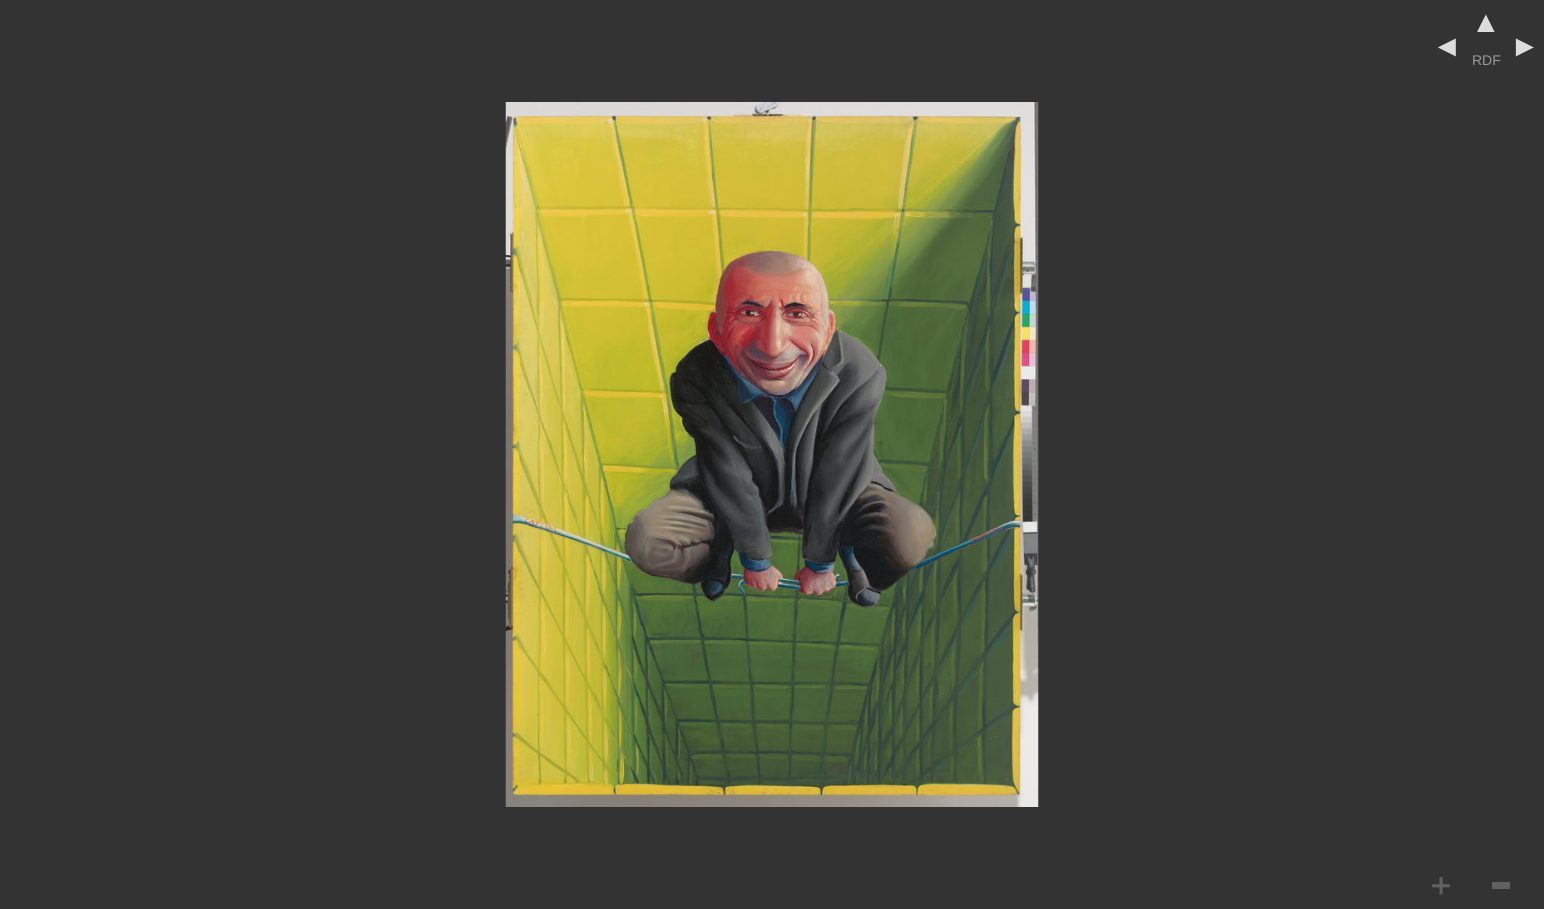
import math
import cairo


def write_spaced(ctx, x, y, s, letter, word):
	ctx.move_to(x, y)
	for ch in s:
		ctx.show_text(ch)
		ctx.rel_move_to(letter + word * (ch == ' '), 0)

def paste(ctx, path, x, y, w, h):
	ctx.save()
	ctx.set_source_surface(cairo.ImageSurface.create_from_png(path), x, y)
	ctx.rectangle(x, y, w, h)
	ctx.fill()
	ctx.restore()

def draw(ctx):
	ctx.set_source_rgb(1, 1, 1)
	ctx.paint()
	paste(ctx, 'media/1.png', 0, 0, 1544, 909)
	paste(ctx, 'media/2.png', 1432, 877, 18, 18)
	ctx.set_source_rgb(0.38, 0.38, 0.38)
	ctx.rectangle(1492, 882, 18, 7)
	ctx.fill()
	ctx.select_font_face('Liberation Serif')
	ctx.set_font_size(30)
	ctx.set_source_rgb(0.867, 0.867, 0.867)
	for x, y, s in [
		(1471, 32, '▲'),
		(1432, 56, '◄'),
		(1510, 56, '►'),
	]:
		write_spaced(ctx, x, y, s, 1, 0)
	ctx.select_font_face('Liberation Sans')
	ctx.set_font_size(14)
	ctx.set_source_rgb(0.6, 0.6, 0.6)
	ctx.move_to(1472, 65)
	ctx.show_text('RDF')


surface = cairo.ImageSurface(cairo.FORMAT_RGB24, 1544, 909)
ctx = cairo.Context(surface)
options = cairo.FontOptions()
options.set_hint_metrics(cairo.HINT_METRICS_OFF)
options.set_hint_style(cairo.HINT_STYLE_NONE)
ctx.set_font_options(options)
ctx.set_miter_limit(4)
draw(ctx)
surface.write_to_png('image.png')
